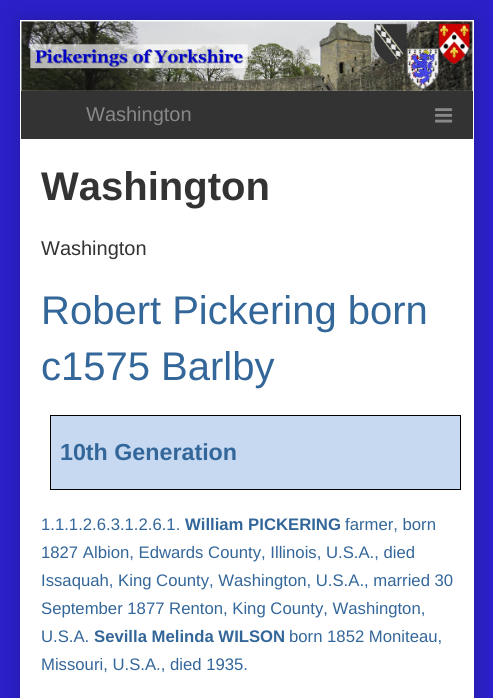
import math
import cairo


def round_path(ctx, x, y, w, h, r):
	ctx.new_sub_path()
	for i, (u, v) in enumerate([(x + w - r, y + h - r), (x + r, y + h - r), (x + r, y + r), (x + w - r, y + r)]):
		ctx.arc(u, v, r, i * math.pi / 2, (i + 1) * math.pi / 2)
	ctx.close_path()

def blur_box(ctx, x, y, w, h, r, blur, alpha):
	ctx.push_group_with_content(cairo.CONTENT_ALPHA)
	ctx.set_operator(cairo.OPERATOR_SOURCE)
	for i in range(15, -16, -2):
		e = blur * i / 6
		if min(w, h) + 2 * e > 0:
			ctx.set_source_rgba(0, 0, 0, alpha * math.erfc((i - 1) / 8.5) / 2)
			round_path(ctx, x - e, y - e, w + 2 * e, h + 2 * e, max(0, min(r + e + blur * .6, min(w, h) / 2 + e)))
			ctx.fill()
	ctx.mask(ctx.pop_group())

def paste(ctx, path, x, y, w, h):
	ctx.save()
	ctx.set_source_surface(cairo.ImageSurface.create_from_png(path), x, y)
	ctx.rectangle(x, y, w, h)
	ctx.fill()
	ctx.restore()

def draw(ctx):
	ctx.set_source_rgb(0.169, 0.125, 0.788)
	ctx.paint()
	ctx.set_source_rgb(0, 0, 0)
	blur_box(ctx, 20, 20, 454, 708, 0, 10, 0.2)
	ctx.set_source_rgb(1, 1, 1)
	ctx.rectangle(20, 20, 454, 678)
	ctx.fill()
	paste(ctx, 'media/1.png', 21, 21, 452, 70)
	ctx.set_source_rgb(0.2, 0.2, 0.2)
	ctx.rectangle(21, 91, 452, 48)
	ctx.fill()
	ctx.select_font_face('Liberation Sans')
	ctx.set_font_size(20)
	ctx.set_source_rgb(0.533, 0.533, 0.533)
	ctx.move_to(86, 121)
	ctx.show_text('Washington')
	paste(ctx, 'media/2.png', 435, 108, 18, 15)
	ctx.select_font_face('Liberation Sans', cairo.FONT_SLANT_NORMAL, cairo.FONT_WEIGHT_BOLD)
	ctx.set_font_size(40)
	ctx.set_source_rgb(0.2, 0.2, 0.2)
	ctx.move_to(41, 200)
	ctx.show_text('Washington')
	ctx.select_font_face('Liberation Sans')
	ctx.set_font_size(20)
	ctx.move_to(41, 255)
	ctx.show_text('Washington')
	ctx.set_font_size(40)
	ctx.set_source_rgb(0.2, 0.4, 0.6)
	ctx.move_to(41, 324)
	ctx.show_text('Robert Pickering born')
	ctx.move_to(41, 380)
	ctx.show_text('c1575 Barlby')
	ctx.set_source_rgb(0.776, 0.851, 0.945)
	ctx.rectangle(51, 416, 409, 73)
	ctx.fill()
	ctx.set_source_rgb(0, 0, 0)
	ctx.rectangle(50, 415, 411, 1)
	ctx.rectangle(460, 415, 1, 75)
	ctx.rectangle(50, 489, 411, 1)
	ctx.rectangle(50, 415, 1, 75)
	ctx.fill()
	ctx.select_font_face('Liberation Sans', cairo.FONT_SLANT_NORMAL, cairo.FONT_WEIGHT_BOLD)
	ctx.set_font_size(23.25)
	ctx.set_source_rgb(0.2, 0.4, 0.6)
	ctx.move_to(60, 460)
	ctx.show_text('10th Generation')
	ctx.select_font_face('Liberation Sans')
	ctx.set_font_size(16.7)
	ctx.move_to(41, 530)
	ctx.show_text('1.1.1.2.6.3.1.2.6.1.')
	ctx.select_font_face('Liberation Sans', cairo.FONT_SLANT_NORMAL, cairo.FONT_WEIGHT_BOLD)
	ctx.move_to(185, 530)
	ctx.show_text('William PICKERING')
	ctx.select_font_face('Liberation Sans')
	for x, y, s in [
		(345, 530, 'farmer, born'),
		(41, 558, '1827 Albion, Edwards County, Illinois, U.S.A., died'),
		(41, 586, 'Issaquah, King County, Washington, U.S.A., married 30'),
		(41, 614, 'September 1877 Renton, King County, Washington,'),
		(41, 642, 'U.S.A.'),
	]:
		ctx.move_to(x, y)
		ctx.show_text(s)
	ctx.select_font_face('Liberation Sans', cairo.FONT_SLANT_NORMAL, cairo.FONT_WEIGHT_BOLD)
	ctx.move_to(94, 642)
	ctx.show_text('Sevilla Melinda WILSON')
	ctx.select_font_face('Liberation Sans')
	ctx.move_to(289, 642)
	ctx.show_text('born 1852 Moniteau,')
	ctx.move_to(41, 670)
	ctx.show_text('Missouri, U.S.A., died 1935.')


surface = cairo.ImageSurface(cairo.FORMAT_RGB24, 493, 698)
ctx = cairo.Context(surface)
options = cairo.FontOptions()
options.set_hint_metrics(cairo.HINT_METRICS_OFF)
options.set_hint_style(cairo.HINT_STYLE_NONE)
ctx.set_font_options(options)
ctx.set_miter_limit(4)
draw(ctx)
surface.write_to_png('image.png')
